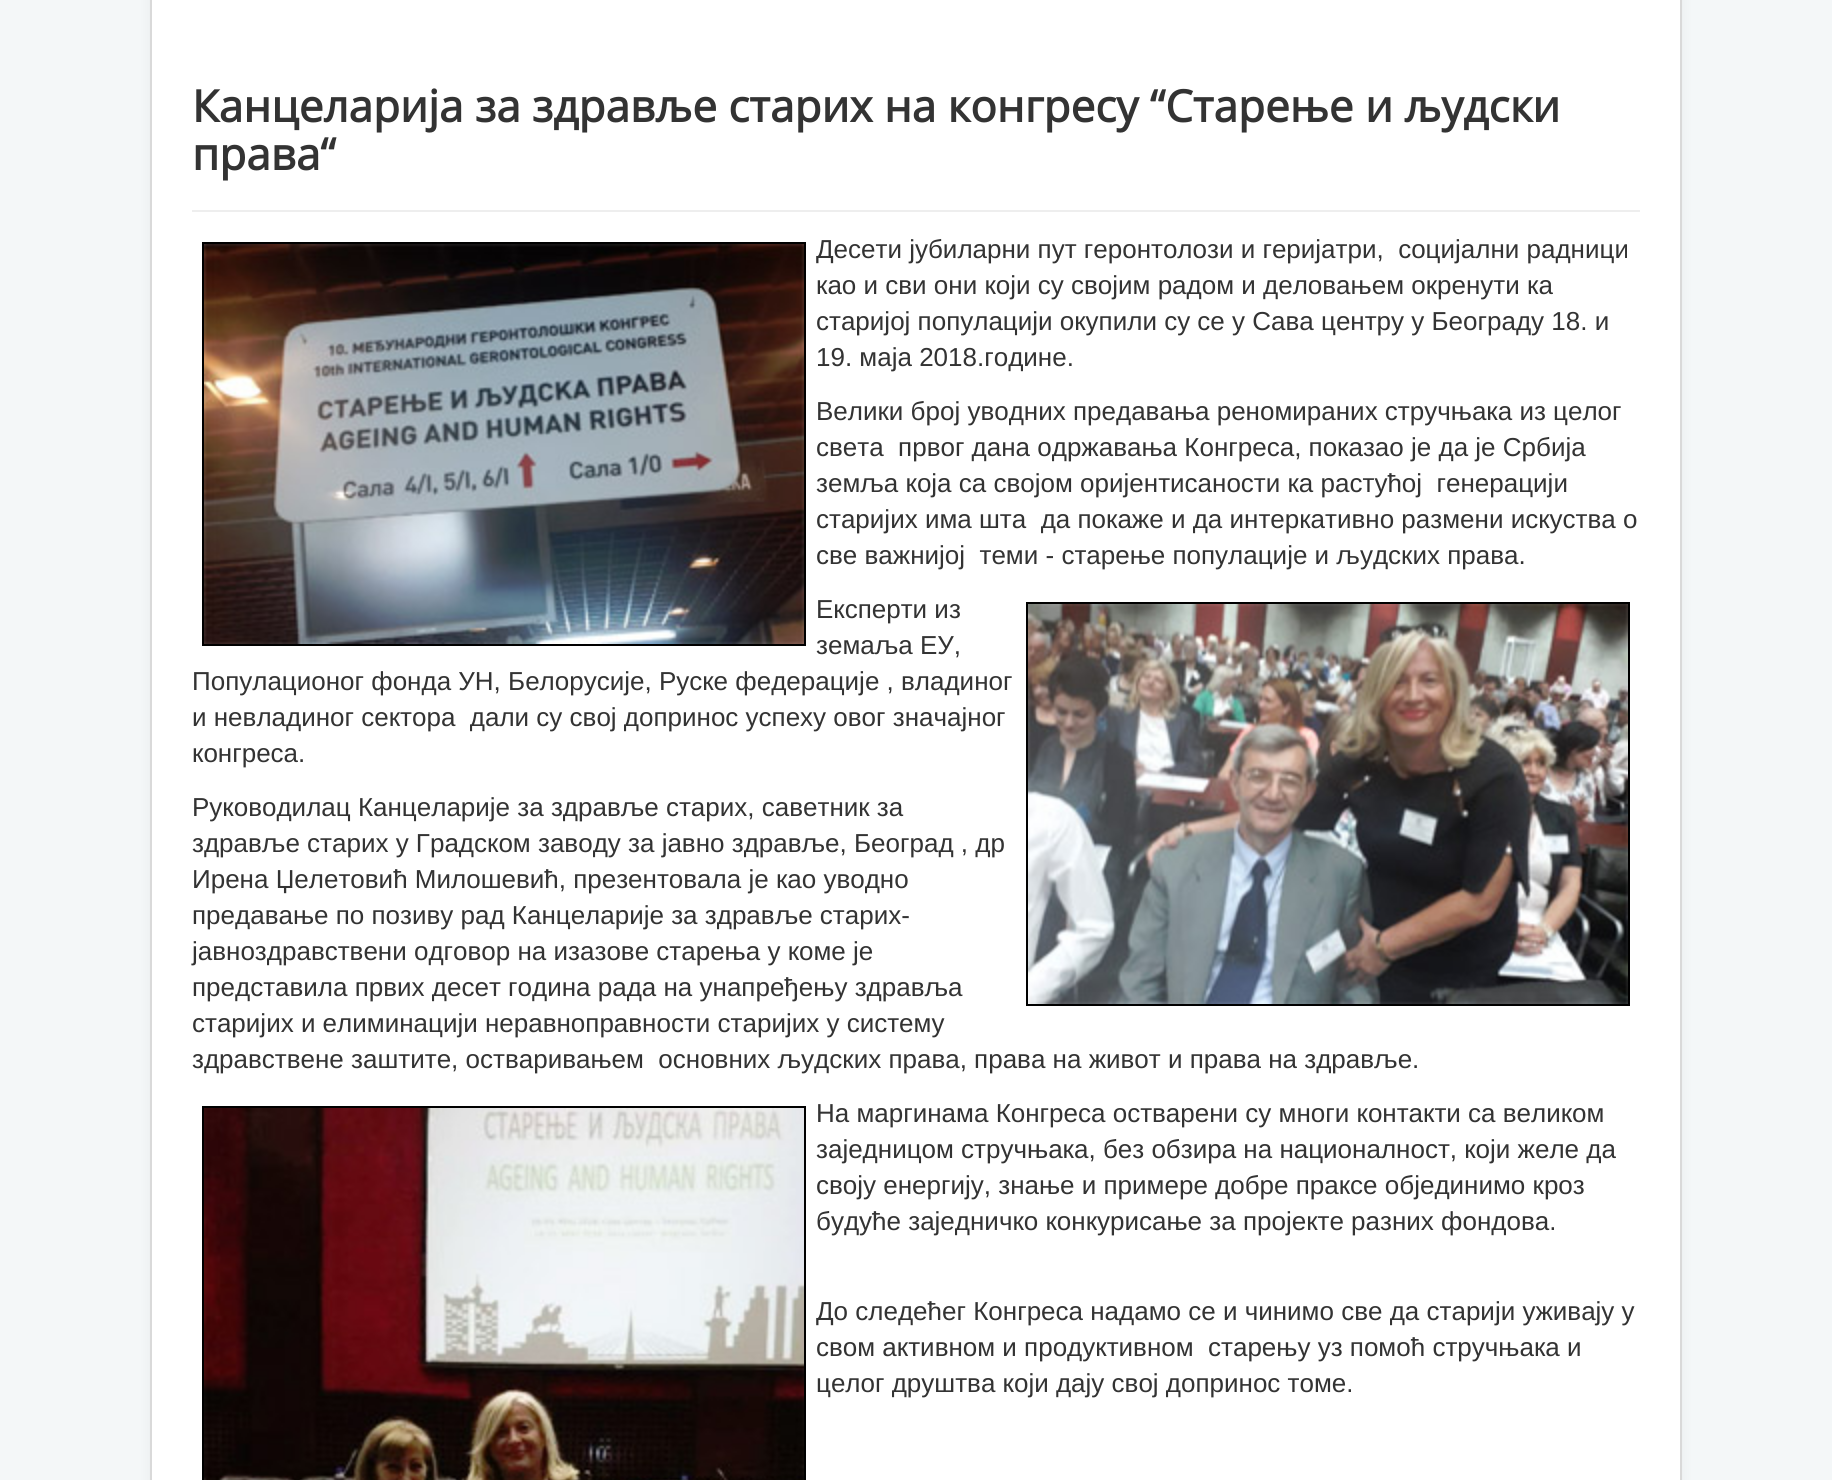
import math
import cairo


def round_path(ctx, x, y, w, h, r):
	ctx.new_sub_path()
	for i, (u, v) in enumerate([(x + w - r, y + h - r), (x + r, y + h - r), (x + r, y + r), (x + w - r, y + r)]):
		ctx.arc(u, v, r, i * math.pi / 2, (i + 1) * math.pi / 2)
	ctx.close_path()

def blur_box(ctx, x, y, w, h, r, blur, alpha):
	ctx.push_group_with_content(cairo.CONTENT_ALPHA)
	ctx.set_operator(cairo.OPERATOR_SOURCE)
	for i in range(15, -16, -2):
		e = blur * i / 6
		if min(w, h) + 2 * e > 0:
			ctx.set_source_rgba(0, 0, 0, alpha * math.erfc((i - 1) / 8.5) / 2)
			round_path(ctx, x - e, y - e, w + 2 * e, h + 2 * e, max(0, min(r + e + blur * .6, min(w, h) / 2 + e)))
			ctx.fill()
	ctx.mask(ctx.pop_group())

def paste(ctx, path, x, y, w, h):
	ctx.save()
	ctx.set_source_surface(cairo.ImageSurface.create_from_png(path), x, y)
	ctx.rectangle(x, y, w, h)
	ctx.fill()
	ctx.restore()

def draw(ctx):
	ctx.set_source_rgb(0.957, 0.965, 0.969)
	ctx.paint()
	ctx.set_source_rgb(0, 0, 0)
	blur_box(ctx, 150, -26, 1532, 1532, 8, 6, 0.05)
	ctx.set_source_rgb(1, 1, 1)
	ctx.rectangle(151, -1, 1530, 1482)
	ctx.fill_preserve()
	ctx.set_source_rgb(0.851, 0.851, 0.851)
	ctx.stroke()
	ctx.set_source_rgb(0.933, 0.933, 0.933)
	ctx.rectangle(192, 210, 1448, 2)
	ctx.fill()
	ctx.select_font_face('Open Sans', cairo.FONT_SLANT_NORMAL, cairo.FONT_WEIGHT_BOLD)
	ctx.set_font_size(44)
	ctx.set_source_rgb(0.2, 0.2, 0.2)
	ctx.move_to(192, 122)
	ctx.show_text('Канцеларија за здравље старих на конгресу “Старење и људски')
	ctx.move_to(192, 170)
	ctx.show_text('права“')
	ctx.rectangle(203, 243, 602, 402)
	ctx.set_source_rgb(0, 0, 0)
	ctx.stroke()
	paste(ctx, 'media/1.png', 204, 244, 600, 400)
	ctx.select_font_face('Liberation Sans')
	ctx.set_font_size(26)
	ctx.set_source_rgb(0.2, 0.2, 0.2)
	for x, y, s in [
		(816, 258, 'Десети јубиларни пут геронтолози и геријатри,  социјални радници'),
		(816, 294, 'као и сви они који су својим радом и деловањем окренути ка'),
		(816, 330, 'старијој популацији окупили су се у Сава центру у Београду 18. и'),
		(816, 366, '19. маја 2018.године.'),
		(816, 420, 'Велики број уводних предавања реномираних стручњака из целог'),
		(816, 456, 'света  првог дана одржавања Конгреса, показао је да је Србија'),
		(816, 492, 'земља која са својом оријентисаности ка растућој  генерацији'),
		(816, 528, 'старијих има шта  да покаже и да интеркативно размени искуства о'),
		(816, 564, 'све важнијој  теми - старење популације и људских права.'),
		(816, 618, 'Експерти из'),
		(816, 654, 'земаља ЕУ,'),
		(192, 690, 'Популационог фонда УН, Белорусије, Руске федерације , владиног'),
		(192, 726, 'и невладиног сектора  дали су свој допринос успеху овог значајног'),
		(192, 762, 'конгреса.'),
	]:
		ctx.move_to(x, y)
		ctx.show_text(s)
	ctx.rectangle(1027, 603, 602, 402)
	ctx.set_source_rgb(0, 0, 0)
	ctx.stroke()
	paste(ctx, 'media/2.png', 1028, 604, 600, 400)
	ctx.set_source_rgb(0.2, 0.2, 0.2)
	for x, y, s in [
		(192, 816, 'Руководилац Канцеларије за здравље старих, саветник за'),
		(192, 852, 'здравље старих у Градском заводу за јавно здравље, Београд , др'),
		(192, 888, 'Ирена Џелетовић Милошевић, презентовала је као уводно'),
		(192, 924, 'предавање по позиву рад Канцеларије за здравље старих-'),
		(192, 960, 'јавноздравствени одговор на изазове старења у коме је'),
		(192, 996, 'представила првих десет година рада на унапређењу здравља'),
		(192, 1032, 'старијих и елиминацији неравноправности старијих у систему'),
		(192, 1068, 'здравствене заштите, остваривањем  основних људских права, права на живот и права на здравље.'),
	]:
		ctx.move_to(x, y)
		ctx.show_text(s)
	ctx.rectangle(203, 1107, 602, 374)
	ctx.set_source_rgb(0, 0, 0)
	ctx.stroke()
	paste(ctx, 'media/3.png', 204, 1108, 600, 372)
	ctx.set_source_rgb(0.2, 0.2, 0.2)
	for x, y, s in [
		(816, 1122, 'На маргинама Конгреса остварени су многи контакти са великом'),
		(816, 1158, 'заједницом стручњака, без обзира на националност, који желе да'),
		(816, 1194, 'своју енергију, знање и примере добре праксе објединимо кроз'),
		(816, 1230, 'будуће заједничко конкурисање за пројекте разних фондова.'),
		(816, 1320, 'До следећег Конгреса надамо се и чинимо све да старији уживају у'),
		(816, 1356, 'свом активном и продуктивном  старењу уз помоћ стручњака и'),
		(816, 1392, 'целог друштва који дају свој допринос томе.'),
	]:
		ctx.move_to(x, y)
		ctx.show_text(s)


surface = cairo.ImageSurface(cairo.FORMAT_RGB24, 1832, 1480)
ctx = cairo.Context(surface)
options = cairo.FontOptions()
options.set_hint_metrics(cairo.HINT_METRICS_OFF)
options.set_hint_style(cairo.HINT_STYLE_NONE)
ctx.set_font_options(options)
ctx.set_miter_limit(4)
draw(ctx)
surface.write_to_png('image.png')
